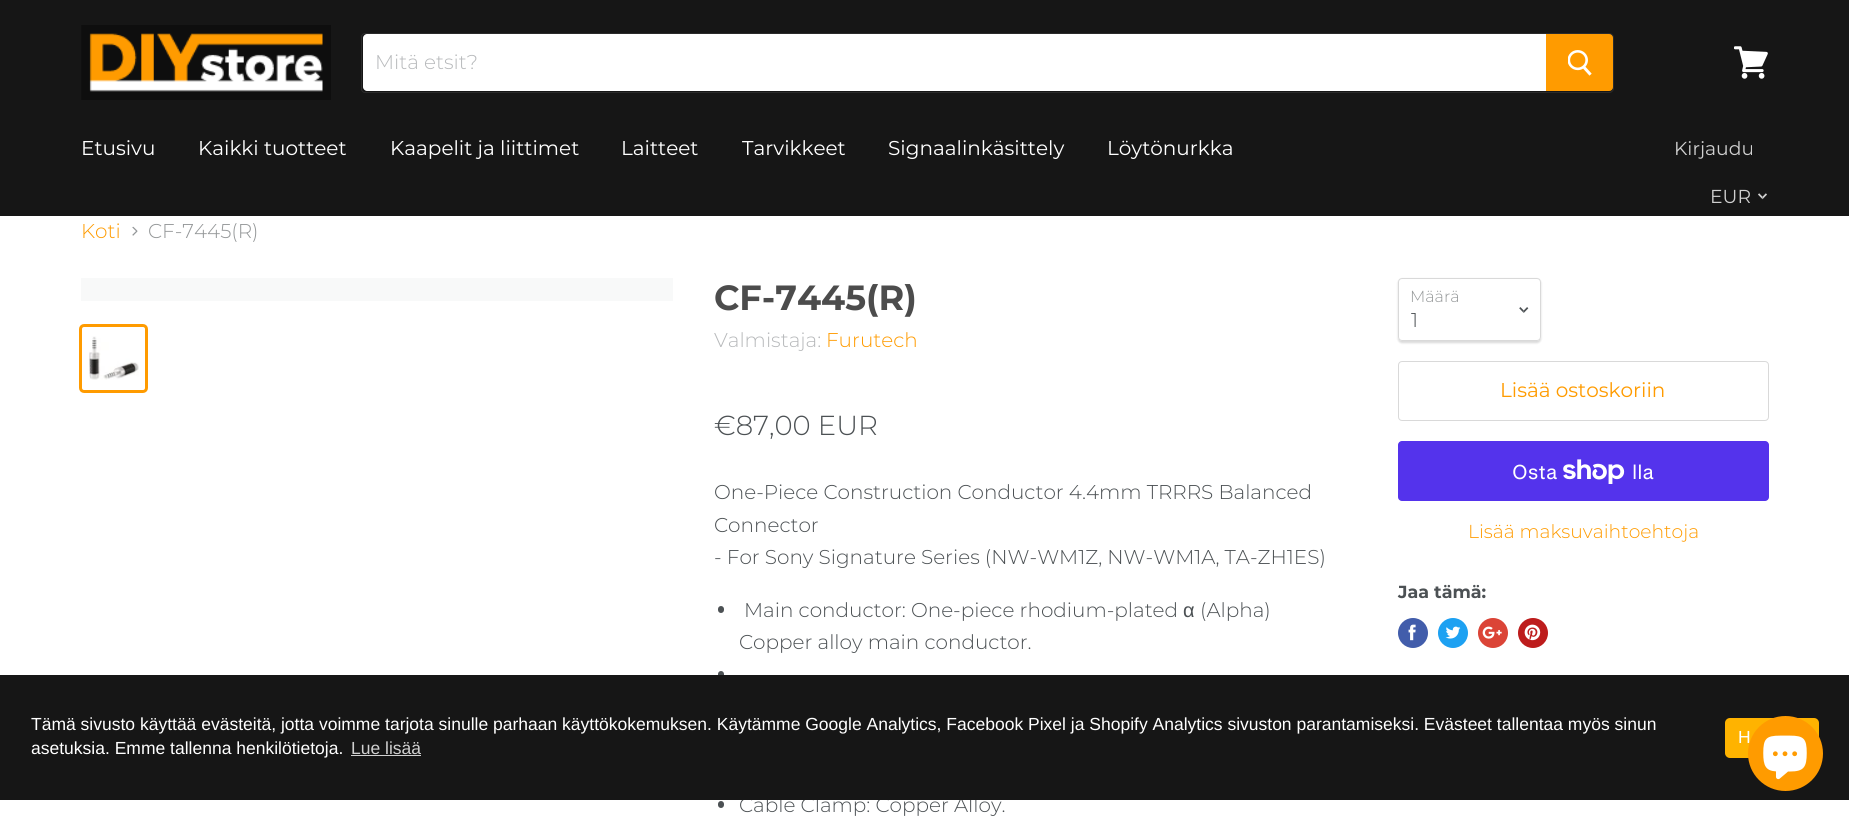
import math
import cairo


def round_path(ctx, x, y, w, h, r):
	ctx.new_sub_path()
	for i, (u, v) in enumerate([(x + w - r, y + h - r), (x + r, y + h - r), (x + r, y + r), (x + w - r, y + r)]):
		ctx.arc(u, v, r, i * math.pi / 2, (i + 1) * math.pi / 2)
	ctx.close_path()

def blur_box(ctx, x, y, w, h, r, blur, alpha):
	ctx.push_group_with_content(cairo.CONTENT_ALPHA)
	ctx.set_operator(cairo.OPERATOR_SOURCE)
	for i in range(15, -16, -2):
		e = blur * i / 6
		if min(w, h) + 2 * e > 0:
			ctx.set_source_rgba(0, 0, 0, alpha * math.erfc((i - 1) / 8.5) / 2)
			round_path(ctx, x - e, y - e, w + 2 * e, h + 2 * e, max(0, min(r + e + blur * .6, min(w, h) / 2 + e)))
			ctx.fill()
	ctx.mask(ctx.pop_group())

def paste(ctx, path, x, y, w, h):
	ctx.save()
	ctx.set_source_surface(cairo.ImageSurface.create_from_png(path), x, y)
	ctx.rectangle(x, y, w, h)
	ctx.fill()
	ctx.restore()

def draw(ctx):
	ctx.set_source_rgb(1, 1, 1)
	ctx.paint()
	ctx.set_source_rgb(0.086, 0.086, 0.086)
	ctx.rectangle(0, 0, 1849, 216)
	ctx.fill()
	paste(ctx, 'media/1.png', 81, 25, 250, 75)
	ctx.new_path()
	ctx.move_to(365, 33.5)
	ctx.line_to(1609, 33.5)
	ctx.curve_to(1611.5, 33.5, 1613.5, 35.5, 1613.5, 38)
	ctx.line_to(1613.5, 88)
	ctx.curve_to(1613.5, 90.5, 1611.5, 92.5, 1609, 92.5)
	ctx.line_to(365, 92.5)
	ctx.curve_to(363, 92.5, 361.5, 91, 361.5, 89)
	ctx.line_to(361.5, 37)
	ctx.curve_to(361.5, 35, 363, 33.5, 365, 33.5)
	ctx.close_path()
	ctx.set_source_rgba(0.498, 0.498, 0.498, 0.2)
	ctx.set_line_width(1)
	ctx.stroke()
	ctx.set_source_rgb(1, 1, 1)
	ctx.new_path()
	ctx.move_to(367, 34)
	ctx.line_to(1546, 34)
	ctx.line_to(1546, 91)
	ctx.line_to(367, 91)
	ctx.curve_to(365, 91, 363, 89, 363, 87)
	ctx.line_to(363, 38)
	ctx.curve_to(363, 36, 365, 34, 367, 34)
	ctx.close_path()
	ctx.fill()
	ctx.select_font_face('Montserrat Light')
	ctx.set_font_size(20)
	ctx.set_source_rgb(0.718, 0.725, 0.733)
	ctx.move_to(375, 69)
	ctx.show_text('Mitä etsit?')
	ctx.set_source_rgb(1, 0.608, 0)
	ctx.new_path()
	ctx.move_to(1546.5, 34.5)
	ctx.line_to(1609, 34.5)
	ctx.curve_to(1611, 34.5, 1612.5, 36, 1612.5, 38)
	ctx.line_to(1612.5, 87)
	ctx.curve_to(1612.5, 89, 1611, 90.5, 1609, 90.5)
	ctx.line_to(1546.5, 90.5)
	ctx.close_path()
	ctx.fill_preserve()
	ctx.stroke()
	paste(ctx, 'media/2.png', 1568, 50, 24, 26)
	paste(ctx, 'media/3.png', 1734, 46, 34, 33)
	ctx.select_font_face('Montserrat')
	ctx.set_source_rgb(1, 1, 1)
	for x, y, s in [
		(81, 155, 'Etusivu'),
		(198, 155, 'Kaikki tuotteet'),
		(390, 155, 'Kaapelit ja liittimet'),
		(621, 155, 'Laitteet'),
		(742, 155, 'Tarvikkeet'),
		(888, 155, 'Signaalinkäsittely'),
		(1107, 155, 'Löytönurkka'),
	]:
		ctx.move_to(x, y)
		ctx.show_text(s)
	ctx.set_font_size(18.75)
	ctx.set_source_rgb(0.816, 0.816, 0.816)
	ctx.move_to(1674, 155)
	ctx.show_text('Kirjaudu')
	ctx.move_to(1710, 203)
	ctx.show_text('EUR')
	paste(ctx, 'media/4.png', 1758, 193, 9, 7)
	ctx.select_font_face('Montserrat Light')
	ctx.set_font_size(20)
	ctx.set_source_rgb(1, 0.608, 0)
	ctx.move_to(81, 238)
	ctx.show_text('Koti')
	paste(ctx, 'media/5.png', 132, 226, 6, 10)
	ctx.set_source_rgb(0.58, 0.592, 0.596)
	ctx.move_to(148, 238)
	ctx.show_text('CF-7445(R)')
	ctx.set_source_rgb(0.969, 0.973, 0.973)
	ctx.rectangle(81, 278, 592, 23)
	ctx.fill()
	round_path(ctx, 80.5, 325.5, 66, 66, 3.5)
	ctx.set_source_rgb(1, 0.608, 0)
	ctx.set_line_width(3)
	ctx.stroke()
	paste(ctx, 'media/6.png', 89, 336, 50, 44)
	ctx.select_font_face('Montserrat', cairo.FONT_SLANT_NORMAL, cairo.FONT_WEIGHT_BOLD)
	ctx.set_font_size(35)
	ctx.set_source_rgb(0.298, 0.298, 0.298)
	ctx.move_to(714, 310)
	ctx.show_text('CF-7445(R)')
	ctx.select_font_face('Montserrat Light')
	ctx.set_font_size(20)
	ctx.set_source_rgb(0.718, 0.725, 0.733)
	ctx.move_to(714, 347)
	ctx.show_text('Valmistaja:')
	ctx.set_source_rgb(1, 0.608, 0)
	ctx.move_to(826, 347)
	ctx.show_text('Furutech')
	ctx.set_font_size(27.5)
	ctx.set_source_rgb(0.298, 0.318, 0.329)
	ctx.move_to(714, 435)
	ctx.show_text('€87,00 EUR')
	ctx.set_font_size(20)
	for x, y, s in [
		(714, 499, 'One-Piece Construction Conductor 4.4mm TRRRS Balanced'),
		(714, 532, 'Connector'),
		(714, 564, '- For Sony Signature Series (NW-WM1Z, NW-WM1A, TA-ZH1ES)'),
	]:
		ctx.move_to(x, y)
		ctx.show_text(s)
	round_path(ctx, 718, 606, 6, 7, 3)
	ctx.fill()
	ctx.move_to(744, 617)
	ctx.show_text('Main conductor: One-piece rhodium-plated')
	ctx.select_font_face('Liberation Sans')
	ctx.move_to(1183, 617)
	ctx.show_text('α')
	ctx.select_font_face('Montserrat Light')
	ctx.move_to(1200, 617)
	ctx.show_text('(Alpha)')
	ctx.move_to(739, 649)
	ctx.show_text('Copper alloy main conductor.')
	round_path(ctx, 718, 671, 6, 7, 3)
	ctx.fill()
	round_path(ctx, 718, 801, 6, 7, 3)
	ctx.fill()
	ctx.move_to(739, 812)
	ctx.show_text('Cable Clamp: Copper Alloy.')
	ctx.save()
	ctx.set_fill_rule(cairo.FILL_RULE_EVEN_ODD)
	ctx.new_path()
	ctx.move_to(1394, 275)
	ctx.line_to(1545, 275)
	ctx.line_to(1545, 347)
	ctx.line_to(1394, 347)
	ctx.close_path()
	ctx.move_to(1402, 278)
	ctx.line_to(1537, 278)
	ctx.curve_to(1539, 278, 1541, 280, 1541, 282)
	ctx.line_to(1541, 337)
	ctx.curve_to(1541, 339, 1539, 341, 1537, 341)
	ctx.line_to(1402, 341)
	ctx.curve_to(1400, 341, 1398, 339, 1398, 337)
	ctx.line_to(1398, 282)
	ctx.curve_to(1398, 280, 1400, 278, 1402, 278)
	ctx.close_path()
	ctx.clip()
	ctx.set_source_rgb(0, 0, 0)
	blur_box(ctx, 1398, 279, 143, 64, 4, 1, 0.15)
	ctx.restore()
	round_path(ctx, 1398.5, 278.5, 142, 62, 3.5)
	ctx.set_source_rgb(0.851, 0.851, 0.851)
	ctx.set_line_width(1)
	ctx.stroke()
	ctx.set_font_size(16)
	ctx.set_source_rgb(0.58, 0.592, 0.596)
	ctx.move_to(1410, 302)
	ctx.show_text('Määrä')
	paste(ctx, 'media/7.png', 1519, 307, 10, 6)
	ctx.set_font_size(20)
	ctx.set_source_rgb(0.298, 0.318, 0.329)
	ctx.move_to(1411, 327)
	ctx.show_text('1')
	round_path(ctx, 1398.5, 361.5, 370, 59, 3.5)
	ctx.set_source_rgb(0.851, 0.851, 0.851)
	ctx.stroke()
	ctx.select_font_face('Montserrat')
	ctx.set_source_rgb(1, 0.608, 0)
	ctx.move_to(1500, 397)
	ctx.show_text('Lisää ostoskoriin')
	ctx.set_source_rgb(0.329, 0.2, 0.922)
	round_path(ctx, 1398, 441, 371, 60, 4)
	ctx.fill()
	ctx.select_font_face('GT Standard')
	ctx.set_source_rgb(1, 1, 1)
	ctx.move_to(1512, 479)
	ctx.show_text('Osta')
	paste(ctx, 'media/8.png', 1563, 459, 62, 25)
	ctx.move_to(1632, 479)
	ctx.show_text('lla')
	ctx.select_font_face('Montserrat Light')
	ctx.set_font_size(18.75)
	ctx.set_source_rgb(1, 0.608, 0)
	ctx.move_to(1468, 538)
	ctx.show_text('Lisää maksuvaihtoehtoja')
	ctx.select_font_face('Montserrat', cairo.FONT_SLANT_NORMAL, cairo.FONT_WEIGHT_BOLD)
	ctx.set_font_size(17.5)
	ctx.set_source_rgb(0.298, 0.318, 0.329)
	ctx.move_to(1398, 598)
	ctx.show_text('Jaa tämä:')
	ctx.set_source_rgb(0.259, 0.365, 0.671)
	ctx.new_path()
	ctx.arc(1413, 633, 15, 0, 2 * math.pi)
	ctx.fill()
	paste(ctx, 'media/9.png', 1408, 624, 8, 17)
	ctx.set_source_rgb(0.114, 0.631, 0.949)
	ctx.arc(1453, 633, 15, 0, 2 * math.pi)
	ctx.fill()
	paste(ctx, 'media/10.png', 1445, 626, 16, 13)
	ctx.set_source_rgb(0.859, 0.267, 0.216)
	ctx.arc(1493, 633, 15, 0, 2 * math.pi)
	ctx.fill()
	paste(ctx, 'media/11.png', 1482, 626, 20, 13)
	ctx.set_source_rgb(0.741, 0.11, 0.11)
	ctx.arc(1533, 633, 15, 0, 2 * math.pi)
	ctx.fill()
	paste(ctx, 'media/12.png', 1524, 624, 17, 17)
	ctx.set_source_rgb(0.086, 0.086, 0.086)
	ctx.rectangle(0, 675, 1849, 125)
	ctx.fill()
	ctx.set_source_rgb(1, 0.702, 0)
	round_path(ctx, 1725, 718, 94, 40, 5)
	ctx.fill()
	ctx.select_font_face('Liberation Sans')
	ctx.set_source_rgb(1, 1, 1)
	ctx.move_to(1738, 743)
	ctx.show_text('H')
	ctx.set_source_rgb(1, 0.608, 0)
	ctx.new_path()
	ctx.arc(1785.5, 753.5, 37.5, 0, 2 * math.pi)
	ctx.fill()
	paste(ctx, 'media/13.png', 1763, 735, 44, 45)
	ctx.set_source_rgb(1, 1, 1)
	ctx.move_to(31, 730)
	ctx.show_text('Tämä sivusto käyttää evästeitä, jotta voimme tarjota sinulle parhaan käyttökokemuksen. Käytämme Google Analytics, Facebook Pixel ja Shopify Analytics sivuston parantamiseksi. Evästeet tallentaa myös sinun')
	ctx.move_to(31, 754)
	ctx.show_text('asetuksia. Emme tallenna henkilötietoja.')
	ctx.set_source_rgb(0.816, 0.816, 0.816)
	ctx.move_to(351, 754)
	ctx.show_text('Lue lisää')
	ctx.rectangle(351, 755, 70, 1)
	ctx.fill()


surface = cairo.ImageSurface(cairo.FORMAT_RGB24, 1849, 817)
ctx = cairo.Context(surface)
options = cairo.FontOptions()
options.set_hint_metrics(cairo.HINT_METRICS_OFF)
options.set_hint_style(cairo.HINT_STYLE_NONE)
ctx.set_font_options(options)
ctx.set_miter_limit(4)
draw(ctx)
surface.write_to_png('image.png')
